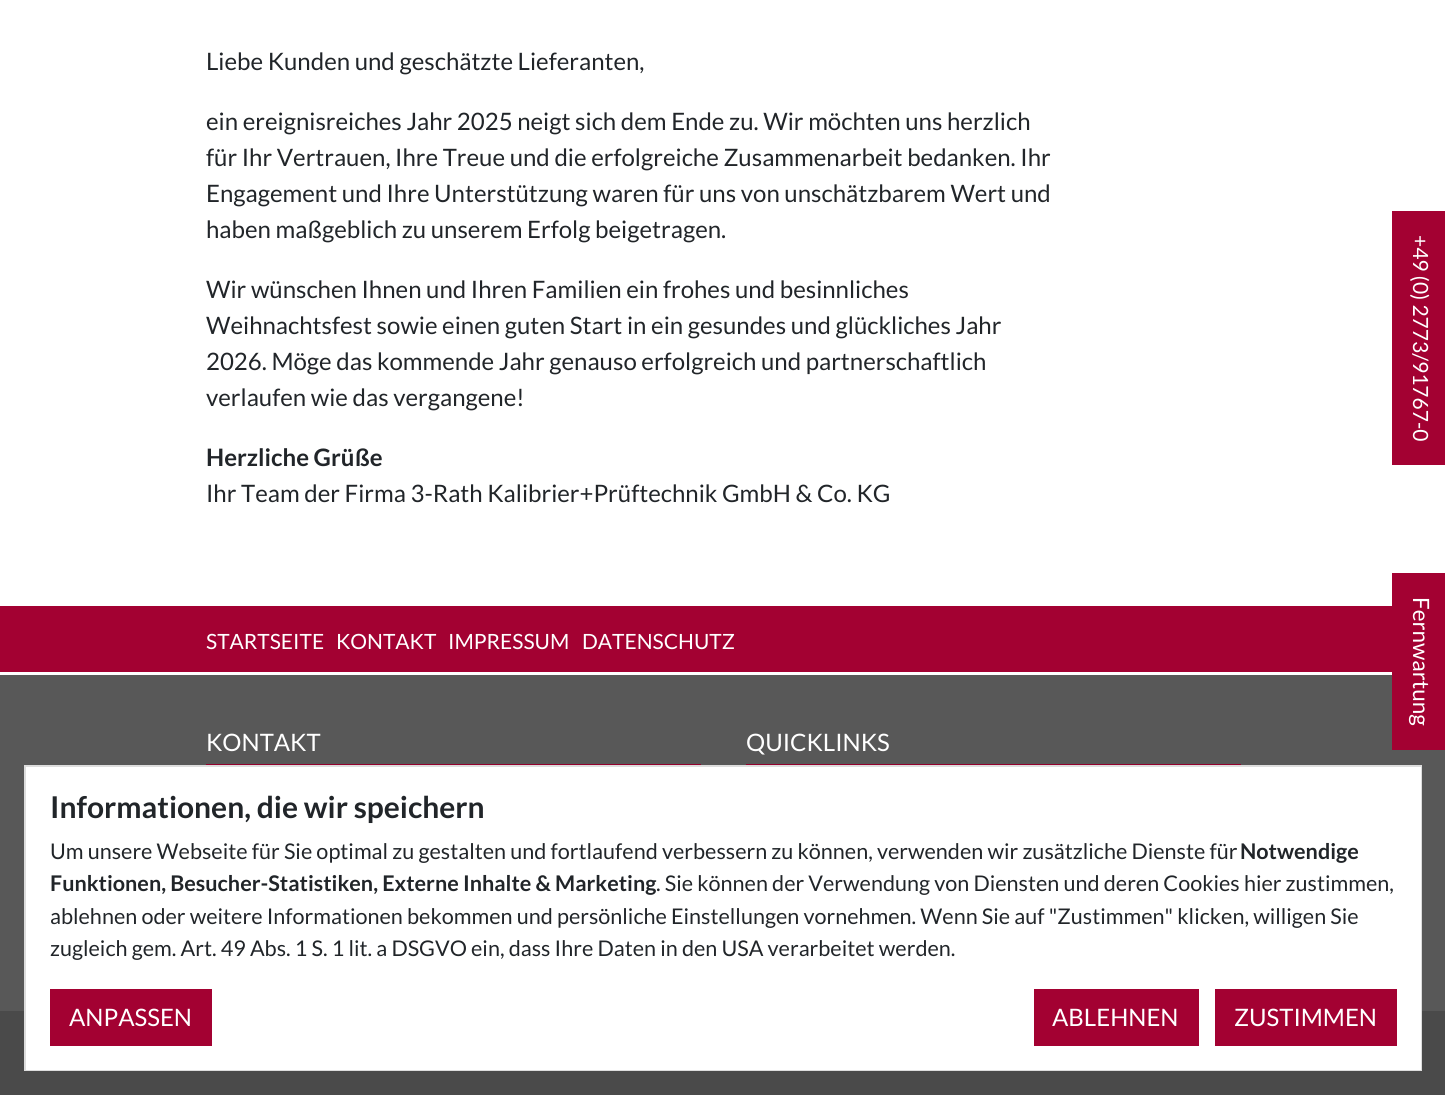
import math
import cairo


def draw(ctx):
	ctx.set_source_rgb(1, 1, 1)
	ctx.paint()
	ctx.select_font_face('Lato')
	ctx.set_font_size(24)
	ctx.set_source_rgb(0.129, 0.145, 0.161)
	for x, y, s in [
		(206, 70, 'Liebe Kunden und geschätzte Lieferanten,'),
		(206, 130, 'ein ereignisreiches Jahr 2025 neigt sich dem Ende zu. Wir möchten uns herzlich'),
		(206, 166, 'für Ihr Vertrauen, Ihre Treue und die erfolgreiche Zusammenarbeit bedanken. Ihr'),
		(206, 202, 'Engagement und Ihre Unterstützung waren für uns von unschätzbarem Wert und'),
		(206, 238, 'haben maßgeblich zu unserem Erfolg beigetragen.'),
		(206, 298, 'Wir wünschen Ihnen und Ihren Familien ein frohes und besinnliches'),
		(206, 334, 'Weihnachtsfest sowie einen guten Start in ein gesundes und glückliches Jahr'),
		(206, 370, '2026. Möge das kommende Jahr genauso erfolgreich und partnerschaftlich'),
		(206, 406, 'verlaufen wie das vergangene!'),
	]:
		ctx.move_to(x, y)
		ctx.show_text(s)
	ctx.select_font_face('Lato', cairo.FONT_SLANT_NORMAL, cairo.FONT_WEIGHT_BOLD)
	ctx.move_to(206, 466)
	ctx.show_text('Herzliche Grüße')
	ctx.select_font_face('Lato')
	ctx.move_to(206, 502)
	ctx.show_text('Ihr Team der Firma 3-Rath Kalibrier+Prüftechnik GmbH & Co. KG')
	ctx.set_source_rgb(0.639, 0.004, 0.196)
	ctx.rectangle(1392, 211, 53, 254)
	ctx.fill()
	ctx.set_font_size(21)
	ctx.set_source_rgb(1, 1, 1)
	ctx.save()
	ctx.translate(1413, 235)
	ctx.rotate(90 * math.pi / 180)
	ctx.move_to(0, 0)
	ctx.show_text('+49 (0) 2773/91767-0')
	ctx.restore()
	ctx.set_source_rgb(0.345, 0.345, 0.345)
	ctx.rectangle(0, 675, 1445, 336)
	ctx.fill()
	ctx.set_source_rgb(0.639, 0.004, 0.196)
	ctx.rectangle(1392, 573, 53, 177)
	ctx.fill()
	ctx.set_font_size(22.5)
	ctx.set_source_rgb(1, 1, 1)
	ctx.save()
	ctx.translate(1413, 597)
	ctx.rotate(90 * math.pi / 180)
	ctx.move_to(0, 0)
	ctx.show_text('Fernwartung')
	ctx.restore()
	ctx.set_source_rgb(0.639, 0.004, 0.196)
	ctx.rectangle(0, 606, 1392, 66)
	ctx.fill()
	ctx.set_font_size(21)
	ctx.set_source_rgb(1, 1, 1)
	for x, y, s in [
		(206, 649, 'STARTSEITE'),
		(336, 649, 'KONTAKT'),
		(448, 649, 'IMPRESSUM'),
		(582, 649, 'DATENSCHUTZ'),
	]:
		ctx.move_to(x, y)
		ctx.show_text(s)
	ctx.set_font_size(24)
	ctx.move_to(206, 751)
	ctx.show_text('KONTAKT')
	ctx.set_source_rgb(0.576, 0.004, 0.176)
	ctx.rectangle(206, 764, 495, 1)
	ctx.fill()
	ctx.set_source_rgb(1, 1, 1)
	ctx.move_to(746, 751)
	ctx.show_text('QUICKLINKS')
	ctx.set_source_rgb(0.576, 0.004, 0.176)
	ctx.rectangle(746, 764, 495, 1)
	ctx.fill()
	ctx.set_source_rgb(0.29, 0.29, 0.29)
	ctx.rectangle(0, 1011, 1445, 84)
	ctx.fill()
	ctx.rectangle(25, 766, 1396, 304)
	ctx.set_source_rgb(0.867, 0.867, 0.867)
	ctx.stroke()
	ctx.set_source_rgb(1, 1, 1)
	ctx.rectangle(26, 767, 1395, 303)
	ctx.fill()
	ctx.select_font_face('Lato', cairo.FONT_SLANT_NORMAL, cairo.FONT_WEIGHT_BOLD)
	ctx.set_font_size(30)
	ctx.set_source_rgb(0.129, 0.145, 0.161)
	ctx.move_to(50, 818)
	ctx.show_text('Informationen, die wir speichern')
	ctx.select_font_face('Lato')
	ctx.set_font_size(21.6)
	ctx.move_to(50, 859)
	ctx.show_text('Um unsere Webseite für Sie optimal zu gestalten und fortlaufend verbessern zu können, verwenden wir zusätzliche Dienste für')
	ctx.select_font_face('Lato', cairo.FONT_SLANT_NORMAL, cairo.FONT_WEIGHT_BOLD)
	ctx.move_to(1240, 859)
	ctx.show_text('Notwendige')
	ctx.move_to(50, 891)
	ctx.show_text('Funktionen, Besucher-Statistiken, Externe Inhalte & Marketing')
	ctx.select_font_face('Lato')
	for x, y, s in [
		(656, 891, '. Sie können der Verwendung von Diensten und deren Cookies hier zustimmen,'),
		(50, 924, 'ablehnen oder weitere Informationen bekommen und persönliche Einstellungen vornehmen. Wenn Sie auf "Zustimmen" klicken, willigen Sie'),
		(50, 956, 'zugleich gem. Art. 49 Abs. 1 S. 1 lit. a DSGVO ein, dass Ihre Daten in den USA verarbeitet werden.'),
	]:
		ctx.move_to(x, y)
		ctx.show_text(s)
	ctx.set_source_rgb(0.639, 0.004, 0.196)
	ctx.rectangle(50, 989, 162, 57)
	ctx.fill()
	ctx.set_font_size(24)
	ctx.set_source_rgb(1, 1, 1)
	ctx.move_to(69, 1026)
	ctx.show_text('ANPASSEN')
	ctx.set_source_rgb(0.639, 0.004, 0.196)
	ctx.rectangle(1034, 989, 165, 57)
	ctx.fill()
	ctx.set_source_rgb(1, 1, 1)
	ctx.move_to(1052, 1026)
	ctx.show_text('ABLEHNEN')
	ctx.set_source_rgb(0.639, 0.004, 0.196)
	ctx.rectangle(1215, 989, 182, 57)
	ctx.fill()
	ctx.set_source_rgb(1, 1, 1)
	ctx.move_to(1234, 1026)
	ctx.show_text('ZUSTIMMEN')


surface = cairo.ImageSurface(cairo.FORMAT_RGB24, 1445, 1095)
ctx = cairo.Context(surface)
options = cairo.FontOptions()
options.set_hint_metrics(cairo.HINT_METRICS_OFF)
options.set_hint_style(cairo.HINT_STYLE_NONE)
ctx.set_font_options(options)
ctx.set_miter_limit(4)
draw(ctx)
surface.write_to_png('image.png')
